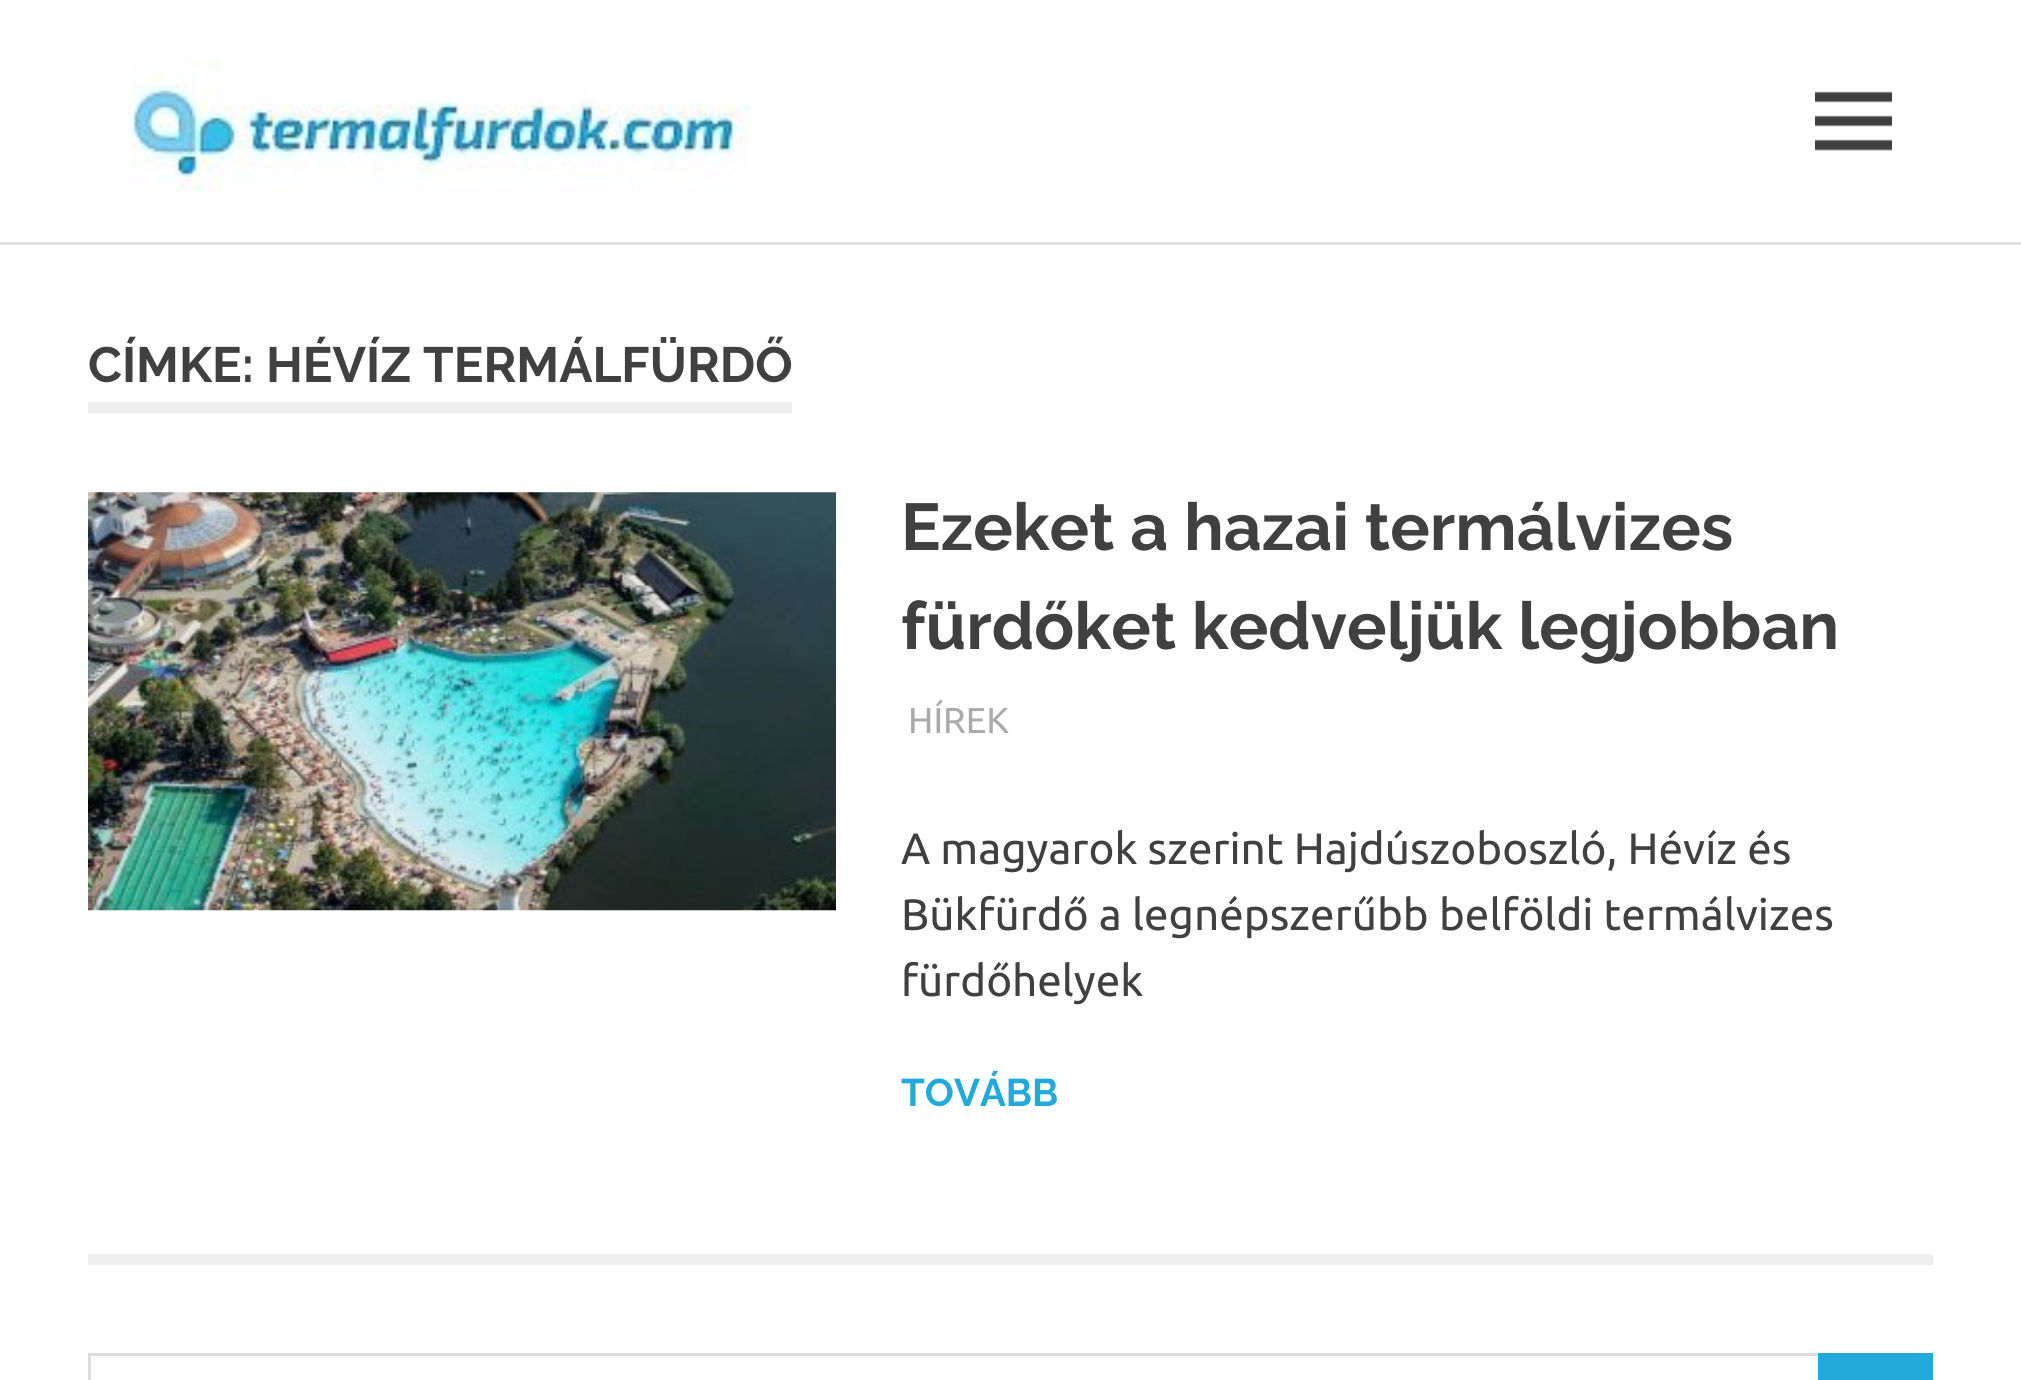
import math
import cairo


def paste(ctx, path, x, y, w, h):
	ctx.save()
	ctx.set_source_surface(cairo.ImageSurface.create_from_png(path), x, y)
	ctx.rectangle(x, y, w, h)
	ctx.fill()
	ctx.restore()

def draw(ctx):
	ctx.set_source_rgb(1, 1, 1)
	ctx.paint()
	ctx.set_source_rgb(0.878, 0.878, 0.878)
	ctx.rectangle(0, 242, 2021, 3)
	ctx.fill()
	paste(ctx, 'media/1.png', 129, 61, 621, 133)
	paste(ctx, 'media/2.png', 1815, 91, 77, 60)
	ctx.set_source_rgb(0.933, 0.933, 0.933)
	ctx.rectangle(88, 402, 704, 11)
	ctx.fill()
	ctx.select_font_face('Raleway Thin')
	ctx.set_font_size(49.5)
	ctx.set_source_rgb(0.251, 0.251, 0.251)
	ctx.move_to(88, 382)
	ctx.show_text('CÍMKE: HÉVÍZ TERMÁLFÜRDŐ')
	paste(ctx, 'media/3.png', 88, 492, 748, 419)
	ctx.set_font_size(66)
	ctx.move_to(901, 550)
	ctx.show_text('Ezeket a hazai termálvizes')
	ctx.move_to(901, 649)
	ctx.show_text('fürdőket kedveljük legjobban')
	ctx.select_font_face('Ubuntu')
	ctx.set_font_size(36)
	ctx.set_source_rgb(0.667, 0.667, 0.667)
	ctx.move_to(908, 733)
	ctx.show_text('HÍREK')
	ctx.set_font_size(44)
	ctx.set_source_rgb(0.251, 0.251, 0.251)
	for x, y, s in [
		(901, 864, 'A magyarok szerint Hajdúszoboszló, Hévíz és'),
		(901, 930, 'Bükfürdő a legnépszerűbb belföldi termálvizes'),
		(901, 996, 'fürdőhelyek'),
	]:
		ctx.move_to(x, y)
		ctx.show_text(s)
	ctx.select_font_face('Raleway Thin')
	ctx.set_font_size(38.5)
	ctx.set_source_rgb(0.133, 0.667, 0.867)
	ctx.move_to(901, 1106)
	ctx.show_text('TOVÁBB')
	ctx.set_source_rgb(0.933, 0.933, 0.933)
	ctx.rectangle(88, 1254, 1845, 11)
	ctx.fill()
	ctx.rectangle(89.5, 1354.5, 1730, 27)
	ctx.set_source_rgb(0.867, 0.867, 0.867)
	ctx.set_line_width(3)
	ctx.stroke()
	ctx.set_source_rgb(0.133, 0.667, 0.867)
	ctx.rectangle(1818, 1353, 115, 27)
	ctx.fill()


surface = cairo.ImageSurface(cairo.FORMAT_RGB24, 2021, 1380)
ctx = cairo.Context(surface)
options = cairo.FontOptions()
options.set_hint_metrics(cairo.HINT_METRICS_OFF)
options.set_hint_style(cairo.HINT_STYLE_NONE)
ctx.set_font_options(options)
ctx.set_miter_limit(4)
draw(ctx)
surface.write_to_png('image.png')
